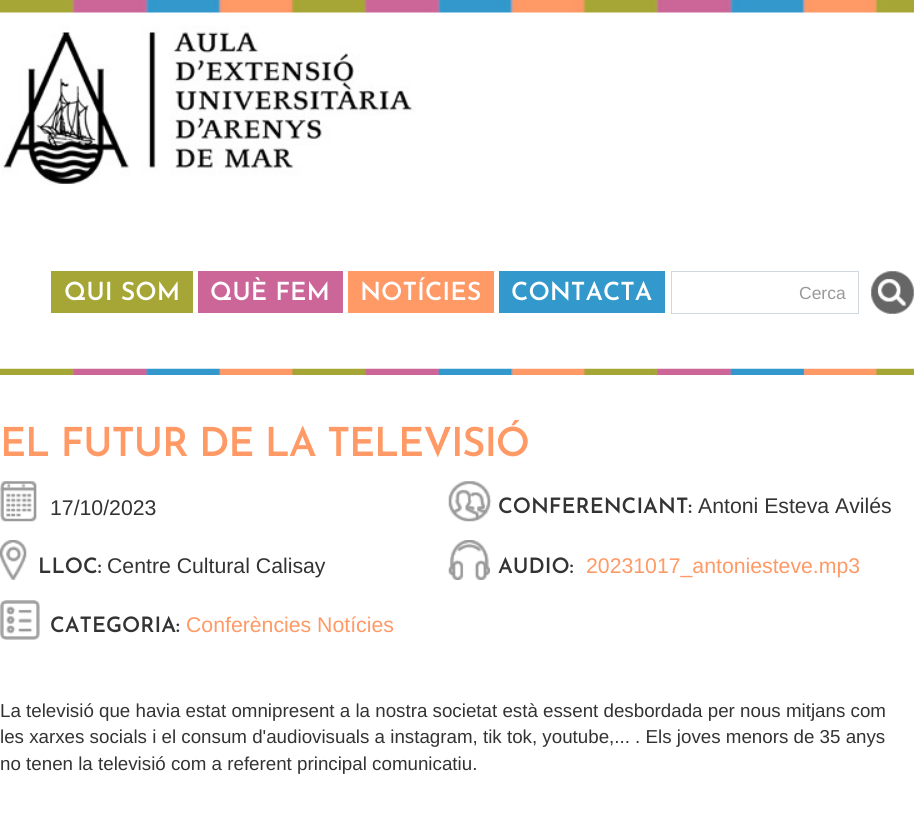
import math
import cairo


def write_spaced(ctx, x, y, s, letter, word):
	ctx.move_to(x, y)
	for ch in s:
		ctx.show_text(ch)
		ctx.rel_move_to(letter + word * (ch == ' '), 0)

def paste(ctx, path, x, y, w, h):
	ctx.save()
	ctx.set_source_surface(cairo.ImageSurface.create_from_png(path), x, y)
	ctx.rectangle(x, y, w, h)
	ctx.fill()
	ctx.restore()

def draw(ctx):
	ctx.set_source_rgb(1, 1, 1)
	ctx.paint()
	paste(ctx, 'media/1.png', 0, 368, 914, 7)
	paste(ctx, 'media/2.png', 0, 0, 914, 13)
	paste(ctx, 'media/3.png', 1, 25, 415, 160)
	ctx.set_source_rgb(0.651, 0.651, 0.216)
	ctx.rectangle(51, 271, 142, 42)
	ctx.fill()
	ctx.select_font_face('Josefin Sans Thin')
	ctx.set_font_size(25)
	ctx.set_source_rgb(1, 1, 1)
	ctx.move_to(64, 300)
	ctx.show_text('QUI SOM')
	ctx.set_source_rgb(0.8, 0.4, 0.6)
	ctx.rectangle(198, 271, 145, 42)
	ctx.fill()
	ctx.set_source_rgb(1, 1, 1)
	ctx.move_to(210, 300)
	ctx.show_text('QUÈ FEM')
	ctx.set_source_rgb(1, 0.6, 0.4)
	ctx.rectangle(348, 271, 146, 42)
	ctx.fill()
	ctx.set_source_rgb(1, 1, 1)
	ctx.move_to(360, 300)
	ctx.show_text('NOTÍCIES')
	ctx.set_source_rgb(0.2, 0.6, 0.8)
	ctx.rectangle(499, 271, 166, 42)
	ctx.fill()
	ctx.set_source_rgb(1, 1, 1)
	ctx.move_to(511, 300)
	ctx.show_text('CONTACTA')
	ctx.rectangle(671.5, 271.5, 187, 42)
	ctx.set_source_rgb(0.816, 0.843, 0.871)
	ctx.set_line_width(1)
	ctx.stroke()
	ctx.select_font_face('Liberation Sans')
	ctx.set_font_size(17.5)
	ctx.set_source_rgb(0.6, 0.6, 0.6)
	ctx.move_to(799, 299)
	ctx.show_text('Cerca')
	paste(ctx, 'media/4.png', 871, 271, 43, 43)
	ctx.select_font_face('Josefin Sans Thin')
	ctx.set_font_size(40)
	ctx.set_source_rgb(1, 0.6, 0.4)
	write_spaced(ctx, 0, 456, 'EL FUTUR DE LA TELEVISIÓ', -1.25, 0)
	paste(ctx, 'media/5.png', 0, 481, 37, 41)
	ctx.select_font_face('Liberation Sans')
	ctx.set_font_size(21.25)
	ctx.set_source_rgb(0.2, 0.2, 0.2)
	ctx.move_to(50, 515)
	ctx.show_text('17/10/2023')
	paste(ctx, 'media/6.png', 448, 481, 44, 41)
	ctx.select_font_face('Josefin Sans Thin')
	ctx.move_to(498, 513)
	ctx.show_text('CONFERENCIANT:')
	ctx.select_font_face('Liberation Sans')
	ctx.move_to(698, 513)
	ctx.show_text('Antoni Esteva Avilés')
	paste(ctx, 'media/7.png', 0, 540, 27, 40)
	ctx.select_font_face('Josefin Sans Thin')
	ctx.move_to(38, 573)
	ctx.show_text('LLOC:')
	ctx.select_font_face('Liberation Sans')
	ctx.move_to(107, 573)
	ctx.show_text('Centre Cultural Calisay')
	paste(ctx, 'media/8.png', 448, 540, 42, 40)
	ctx.select_font_face('Josefin Sans Thin')
	ctx.move_to(498, 573)
	ctx.show_text('AUDIO:')
	ctx.select_font_face('Liberation Sans')
	ctx.set_source_rgb(1, 0.6, 0.4)
	ctx.move_to(586, 573)
	ctx.show_text('20231017_antoniesteve.mp3')
	paste(ctx, 'media/9.png', 0, 600, 40, 40)
	ctx.select_font_face('Josefin Sans Thin')
	ctx.set_source_rgb(0.2, 0.2, 0.2)
	ctx.move_to(50, 632)
	ctx.show_text('CATEGORIA:')
	ctx.select_font_face('Liberation Sans')
	ctx.set_source_rgb(1, 0.6, 0.4)
	ctx.move_to(186, 632)
	ctx.show_text('Conferències Notícies')
	ctx.set_font_size(18.75)
	ctx.set_source_rgb(0.2, 0.2, 0.2)
	for x, y, s in [
		(0, 717, 'La televisió que havia estat omnipresent a la nostra societat està essent desbordada per nous mitjans com'),
		(0, 743, 'les xarxes socials i el consum d\'audiovisuals a instagram, tik tok, youtube,... . Els joves menors de 35 anys'),
		(0, 770, 'no tenen la televisió com a referent principal comunicatiu.'),
	]:
		ctx.move_to(x, y)
		ctx.show_text(s)


surface = cairo.ImageSurface(cairo.FORMAT_RGB24, 914, 823)
ctx = cairo.Context(surface)
options = cairo.FontOptions()
options.set_hint_metrics(cairo.HINT_METRICS_OFF)
options.set_hint_style(cairo.HINT_STYLE_NONE)
ctx.set_font_options(options)
ctx.set_miter_limit(4)
draw(ctx)
surface.write_to_png('image.png')
